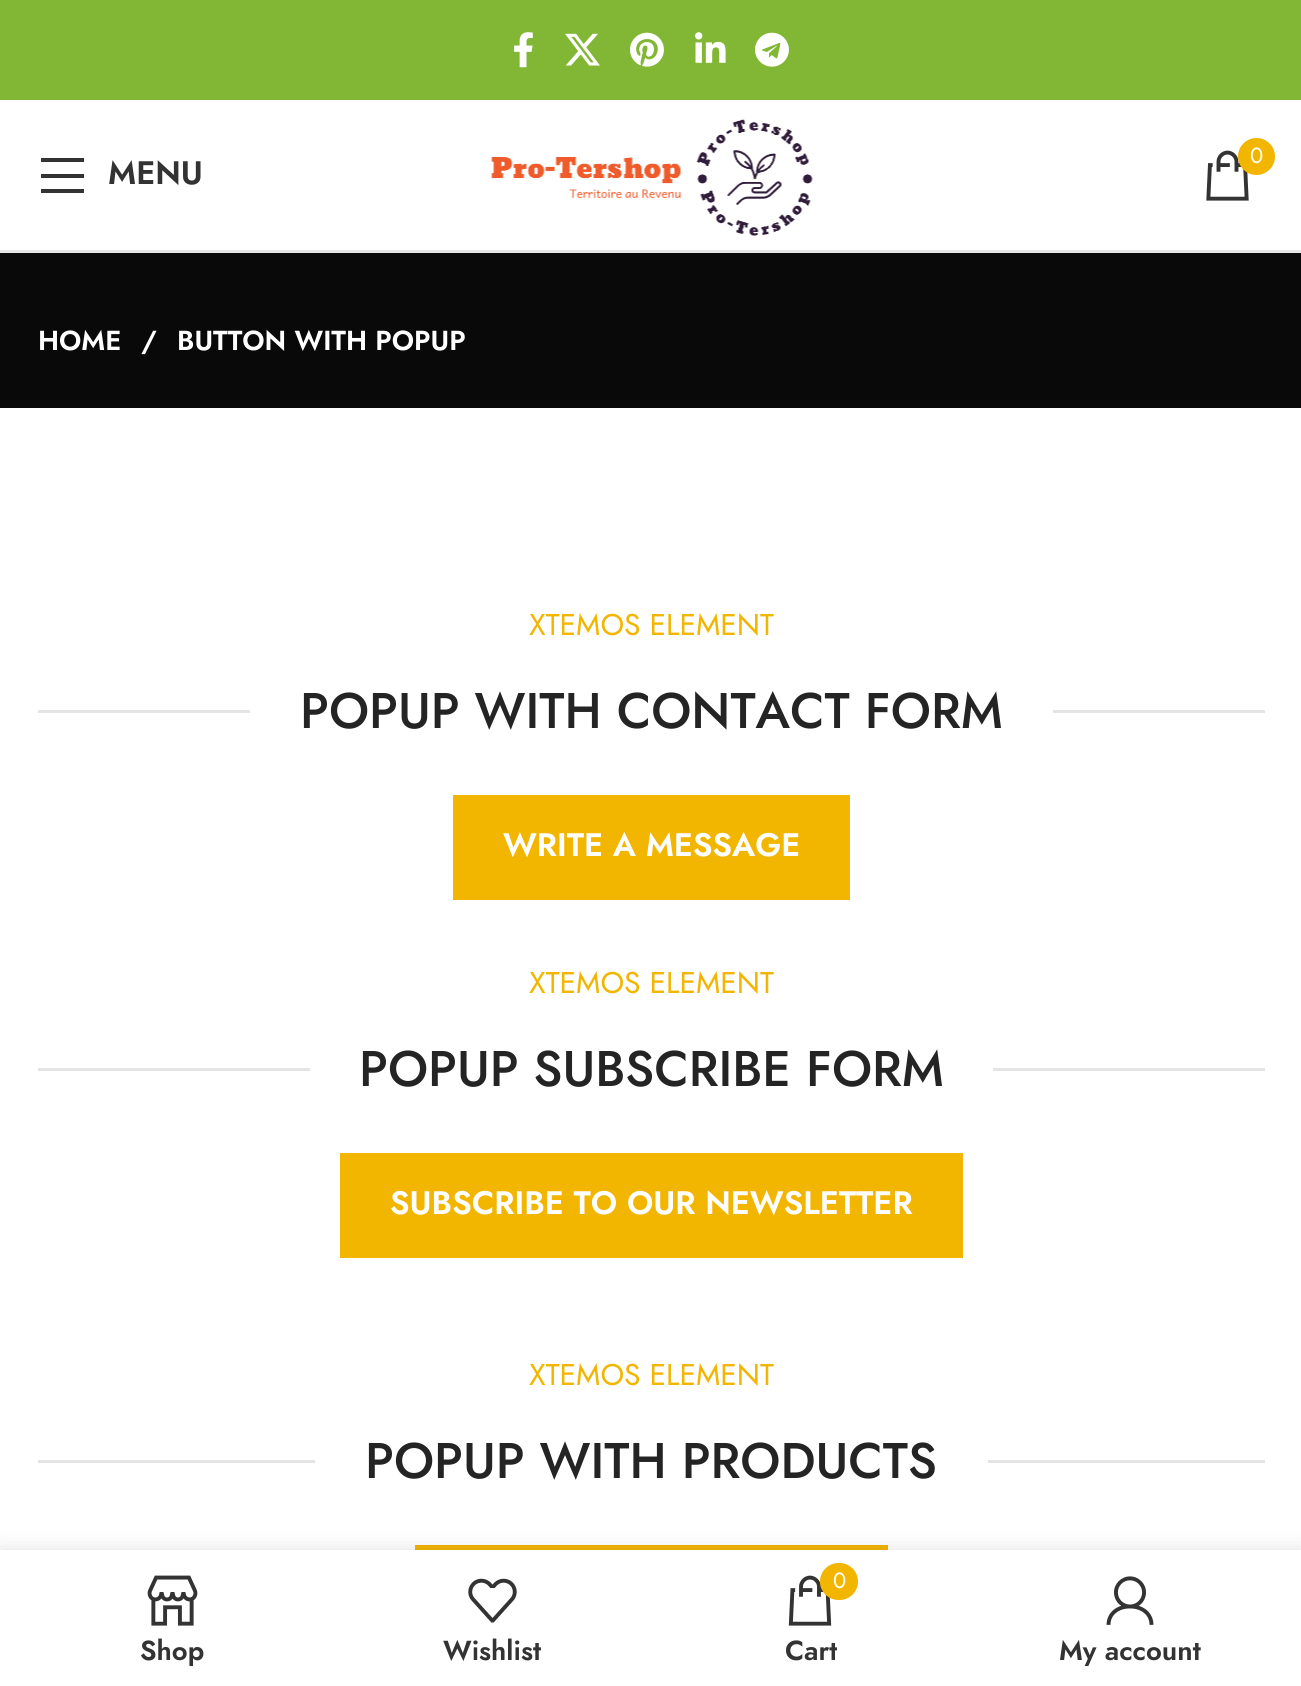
import math
import cairo


def round_path(ctx, x, y, w, h, r):
	ctx.new_sub_path()
	for i, (u, v) in enumerate([(x + w - r, y + h - r), (x + r, y + h - r), (x + r, y + r), (x + w - r, y + r)]):
		ctx.arc(u, v, r, i * math.pi / 2, (i + 1) * math.pi / 2)
	ctx.close_path()

def blur_box(ctx, x, y, w, h, r, blur, alpha):
	ctx.push_group_with_content(cairo.CONTENT_ALPHA)
	ctx.set_operator(cairo.OPERATOR_SOURCE)
	for i in range(15, -16, -2):
		e = blur * i / 6
		if min(w, h) + 2 * e > 0:
			ctx.set_source_rgba(0, 0, 0, alpha * math.erfc((i - 1) / 8.5) / 2)
			round_path(ctx, x - e, y - e, w + 2 * e, h + 2 * e, max(0, min(r + e + blur * .6, min(w, h) / 2 + e)))
			ctx.fill()
	ctx.mask(ctx.pop_group())

def paste(ctx, path, x, y, w, h):
	ctx.save()
	ctx.set_source_surface(cairo.ImageSurface.create_from_png(path), x, y)
	ctx.rectangle(x, y, w, h)
	ctx.fill()
	ctx.restore()

def draw(ctx):
	ctx.set_source_rgb(1, 1, 1)
	ctx.paint()
	ctx.set_source_rgb(0.51, 0.718, 0.208)
	ctx.rectangle(0, 0, 1301, 100)
	ctx.fill()
	paste(ctx, 'media/1.png', 514, 32, 19, 36)
	paste(ctx, 'media/2.png', 565, 33, 35, 33)
	paste(ctx, 'media/3.png', 630, 32, 34, 35)
	paste(ctx, 'media/4.png', 695, 32, 31, 31)
	paste(ctx, 'media/5.png', 755, 32, 34, 35)
	ctx.set_source_rgb(0.902, 0.902, 0.902)
	ctx.rectangle(0, 250, 1301, 3)
	ctx.fill()
	paste(ctx, 'media/6.png', 491, 119, 322, 117)
	paste(ctx, 'media/7.png', 1206, 150, 43, 51)
	ctx.set_source_rgb(0.949, 0.71, 0)
	ctx.arc(1256.5, 156.5, 18.5, 0, 2 * math.pi)
	ctx.fill()
	ctx.select_font_face('Jost')
	ctx.set_font_size(22)
	ctx.set_source_rgb(1, 1, 1)
	ctx.move_to(1250, 163)
	ctx.show_text('0')
	ctx.set_source_rgb(0.2, 0.2, 0.2)
	ctx.new_path()
	ctx.move_to(41, 162)
	ctx.line_to(84, 162)
	ctx.line_to(84, 158)
	ctx.line_to(41, 158)
	ctx.close_path()
	ctx.move_to(41, 178)
	ctx.line_to(84, 178)
	ctx.line_to(84, 174)
	ctx.line_to(41, 174)
	ctx.close_path()
	ctx.move_to(41, 193)
	ctx.line_to(84, 193)
	ctx.line_to(84, 189)
	ctx.line_to(41, 189)
	ctx.close_path()
	ctx.fill()
	ctx.select_font_face('Jost SemiBold')
	ctx.set_font_size(32.5)
	ctx.move_to(108, 184)
	ctx.show_text('MENU')
	ctx.set_source_rgb(0.039, 0.039, 0.039)
	ctx.rectangle(0, 253, 1301, 155)
	ctx.fill()
	ctx.set_font_size(27.5)
	ctx.set_source_rgb(1, 1, 1)
	for x, y, s in [
		(38, 350, 'HOME'),
		(141, 350, '/'),
		(177, 350, 'BUTTON WITH POPUP'),
	]:
		ctx.move_to(x, y)
		ctx.show_text(s)
	ctx.select_font_face('Jost')
	ctx.set_font_size(30)
	ctx.set_source_rgb(0.949, 0.71, 0)
	ctx.move_to(529, 635)
	ctx.show_text('XTEMOS ELEMENT')
	ctx.set_source_rgb(0.894, 0.894, 0.894)
	ctx.rectangle(38, 710, 212, 3)
	ctx.fill()
	ctx.select_font_face('Jost Medium')
	ctx.set_font_size(50)
	ctx.set_source_rgb(0.141, 0.141, 0.141)
	ctx.move_to(300, 728)
	ctx.show_text('POPUP WITH CONTACT FORM')
	ctx.set_source_rgb(0.894, 0.894, 0.894)
	ctx.rectangle(1053, 710, 212, 3)
	ctx.fill()
	ctx.set_source_rgb(0.949, 0.71, 0)
	ctx.rectangle(453, 795, 397, 105)
	ctx.fill()
	ctx.select_font_face('Jost SemiBold')
	ctx.set_font_size(32.5)
	ctx.set_source_rgb(1, 1, 1)
	ctx.move_to(503, 856)
	ctx.show_text('WRITE A MESSAGE')
	ctx.select_font_face('Jost')
	ctx.set_font_size(30)
	ctx.set_source_rgb(0.949, 0.71, 0)
	ctx.move_to(529, 993)
	ctx.show_text('XTEMOS ELEMENT')
	ctx.set_source_rgb(0.894, 0.894, 0.894)
	ctx.rectangle(38, 1068, 272, 3)
	ctx.fill()
	ctx.select_font_face('Jost Medium')
	ctx.set_font_size(50)
	ctx.set_source_rgb(0.141, 0.141, 0.141)
	ctx.move_to(359, 1086)
	ctx.show_text('POPUP SUBSCRIBE FORM')
	ctx.set_source_rgb(0.894, 0.894, 0.894)
	ctx.rectangle(993, 1068, 272, 3)
	ctx.fill()
	ctx.set_source_rgb(0.949, 0.71, 0)
	ctx.rectangle(340, 1153, 623, 105)
	ctx.fill()
	ctx.select_font_face('Jost SemiBold')
	ctx.set_font_size(32.5)
	ctx.set_source_rgb(1, 1, 1)
	ctx.move_to(390, 1214)
	ctx.show_text('SUBSCRIBE TO OUR NEWSLETTER')
	ctx.select_font_face('Jost')
	ctx.set_font_size(30)
	ctx.set_source_rgb(0.949, 0.71, 0)
	ctx.move_to(529, 1385)
	ctx.show_text('XTEMOS ELEMENT')
	ctx.set_source_rgb(0.894, 0.894, 0.894)
	ctx.rectangle(38, 1460, 277, 3)
	ctx.fill()
	ctx.select_font_face('Jost Medium')
	ctx.set_font_size(50)
	ctx.set_source_rgb(0.141, 0.141, 0.141)
	ctx.move_to(365, 1478)
	ctx.show_text('POPUP WITH PRODUCTS')
	ctx.set_source_rgb(0.894, 0.894, 0.894)
	ctx.rectangle(988, 1460, 277, 3)
	ctx.fill()
	ctx.set_source_rgb(0.949, 0.71, 0)
	ctx.rectangle(415, 1545, 473, 5)
	ctx.fill()
	ctx.set_source_rgb(0, 0, 0)
	blur_box(ctx, 0, 1550, 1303, 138, 0, 11, 0.12)
	ctx.set_source_rgb(1, 1, 1)
	ctx.rectangle(0, 1550, 1301, 136)
	ctx.fill()
	paste(ctx, 'media/8.png', 147, 1575, 51, 51)
	ctx.select_font_face('Jost SemiBold')
	ctx.set_font_size(27.5)
	ctx.set_source_rgb(0.2, 0.2, 0.2)
	ctx.move_to(140, 1660)
	ctx.show_text('Shop')
	paste(ctx, 'media/9.png', 468, 1578, 49, 45)
	ctx.move_to(443, 1660)
	ctx.show_text('Wishlist')
	paste(ctx, 'media/10.png', 788, 1575, 44, 51)
	ctx.set_source_rgb(0.949, 0.71, 0)
	round_path(ctx, 820, 1563, 38, 37, 18.5)
	ctx.fill()
	ctx.select_font_face('Jost')
	ctx.set_font_size(22)
	ctx.set_source_rgb(1, 1, 1)
	ctx.move_to(833, 1588)
	ctx.show_text('0')
	ctx.select_font_face('Jost SemiBold')
	ctx.set_font_size(27.5)
	ctx.set_source_rgb(0.2, 0.2, 0.2)
	ctx.move_to(785, 1660)
	ctx.show_text('Cart')
	paste(ctx, 'media/11.png', 1106, 1576, 48, 49)
	ctx.move_to(1059, 1660)
	ctx.show_text('My account')


surface = cairo.ImageSurface(cairo.FORMAT_RGB24, 1301, 1686)
ctx = cairo.Context(surface)
options = cairo.FontOptions()
options.set_hint_metrics(cairo.HINT_METRICS_OFF)
options.set_hint_style(cairo.HINT_STYLE_NONE)
ctx.set_font_options(options)
ctx.set_miter_limit(4)
draw(ctx)
surface.write_to_png('image.png')
